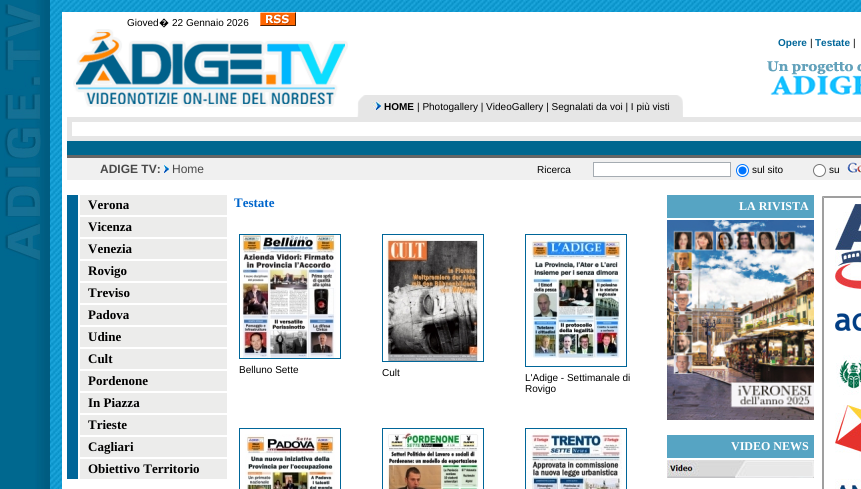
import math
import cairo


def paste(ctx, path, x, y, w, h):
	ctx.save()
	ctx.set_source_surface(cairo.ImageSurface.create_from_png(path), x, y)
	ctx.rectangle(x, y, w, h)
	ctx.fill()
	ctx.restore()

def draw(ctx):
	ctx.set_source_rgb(1, 1, 1)
	ctx.paint()
	paste(ctx, 'media/1.png', 0, 0, 50, 489)
	paste(ctx, 'media/2.png', 4, 4, 37, 256)
	paste(ctx, 'media/3.png', 50, 0, 811, 489)
	ctx.set_source_rgb(1, 1, 1)
	ctx.rectangle(62, 12, 799, 477)
	ctx.fill()
	ctx.select_font_face('Liberation Sans')
	ctx.set_font_size(10)
	ctx.set_source_rgb(0, 0, 0)
	ctx.move_to(127, 26)
	ctx.show_text('Gioved')
	ctx.select_font_face('Noto Sans')
	ctx.move_to(159, 26)
	ctx.show_text('�')
	ctx.select_font_face('Liberation Sans')
	ctx.move_to(172, 26)
	ctx.show_text('22 Gennaio 2026')
	paste(ctx, 'media/4.png', 260, 12, 36, 14)
	paste(ctx, 'media/5.png', 73, 29, 275, 78)
	ctx.select_font_face('Liberation Sans', cairo.FONT_SLANT_NORMAL, cairo.FONT_WEIGHT_BOLD)
	ctx.set_source_rgb(0, 0.4, 0.6)
	ctx.move_to(778, 46)
	ctx.show_text('Opere')
	ctx.select_font_face('Liberation Sans')
	ctx.set_source_rgb(0, 0, 0)
	ctx.move_to(810, 46)
	ctx.show_text('|')
	ctx.select_font_face('Liberation Sans', cairo.FONT_SLANT_NORMAL, cairo.FONT_WEIGHT_BOLD)
	ctx.set_source_rgb(0, 0.4, 0.6)
	ctx.move_to(815, 46)
	ctx.show_text('Testate')
	ctx.select_font_face('Liberation Sans')
	ctx.set_source_rgb(0, 0, 0)
	ctx.move_to(853, 46)
	ctx.show_text('|')
	paste(ctx, 'media/6.png', 767, 61, 94, 35)
	paste(ctx, 'media/7.png', 357, 95, 15, 22)
	ctx.set_source_rgb(0.902, 0.902, 0.902)
	ctx.rectangle(372, 95, 298, 22)
	ctx.fill()
	paste(ctx, 'media/8.png', 372, 101, 10, 9)
	ctx.select_font_face('Liberation Sans', cairo.FONT_SLANT_NORMAL, cairo.FONT_WEIGHT_BOLD)
	ctx.set_source_rgb(0, 0, 0)
	ctx.move_to(384, 110)
	ctx.show_text('HOME')
	ctx.select_font_face('Liberation Sans')
	ctx.move_to(417, 110)
	ctx.show_text('| Photogallery | VideoGallery | Segnalati da voi | I più visti')
	paste(ctx, 'media/9.png', 670, 95, 13, 22)
	ctx.set_source_rgb(0.902, 0.902, 0.902)
	ctx.rectangle(67, 117, 794, 24)
	ctx.fill()
	ctx.set_source_rgb(1, 1, 1)
	ctx.rectangle(72, 122, 789, 14)
	ctx.fill()
	ctx.set_source_rgb(0, 0.404, 0.561)
	ctx.rectangle(67, 141, 794, 14)
	ctx.fill()
	ctx.set_source_rgb(0.4, 0.4, 0.4)
	ctx.rectangle(67, 155, 794, 3)
	ctx.fill()
	ctx.set_source_rgb(0.941, 0.941, 0.941)
	ctx.rectangle(67, 158, 794, 22)
	ctx.fill()
	ctx.select_font_face('Liberation Sans', cairo.FONT_SLANT_NORMAL, cairo.FONT_WEIGHT_BOLD)
	ctx.set_font_size(12)
	ctx.set_source_rgb(0.29, 0.29, 0.29)
	ctx.move_to(100, 173)
	ctx.show_text('ADIGE TV:')
	paste(ctx, 'media/10.png', 164, 165, 5, 8)
	ctx.select_font_face('Liberation Sans')
	ctx.move_to(172, 173)
	ctx.show_text('Home')
	ctx.set_font_size(10)
	ctx.set_source_rgb(0, 0, 0)
	ctx.move_to(537, 173)
	ctx.show_text('Ricerca')
	ctx.set_source_rgb(1, 1, 1)
	ctx.rectangle(593.5, 162.5, 137, 14)
	ctx.fill_preserve()
	ctx.set_source_rgb(0.647, 0.675, 0.698)
	ctx.set_line_width(1)
	ctx.stroke()
	ctx.set_source_rgb(1, 1, 1)
	ctx.arc(742.5, 170.5, 6, 0, 2 * math.pi)
	ctx.fill_preserve()
	ctx.set_source_rgb(0, 0.459, 1)
	ctx.stroke()
	ctx.arc(742.5, 170.5, 4, 0, 2 * math.pi)
	ctx.fill()
	ctx.set_source_rgb(0, 0, 0)
	ctx.move_to(752, 173)
	ctx.show_text('sul sito')
	ctx.set_source_rgb(1, 1, 1)
	ctx.new_path()
	ctx.arc(819.5, 170.5, 6, 0, 2 * math.pi)
	ctx.fill_preserve()
	ctx.set_source_rgb(0.463, 0.463, 0.463)
	ctx.stroke()
	ctx.set_source_rgb(0, 0, 0)
	ctx.move_to(829, 173)
	ctx.show_text('su')
	paste(ctx, 'media/11.png', 847, 162, 14, 12)
	ctx.set_source_rgb(0, 0.4, 0.6)
	ctx.rectangle(67, 195, 11, 284)
	ctx.fill()
	ctx.set_source_rgb(0.925, 0.925, 0.918)
	ctx.rectangle(80, 195, 147, 20)
	ctx.fill()
	ctx.select_font_face('Liberation Serif', cairo.FONT_SLANT_NORMAL, cairo.FONT_WEIGHT_BOLD)
	ctx.set_font_size(13)
	ctx.set_source_rgb(0, 0, 0)
	ctx.move_to(88, 209)
	ctx.show_text('Verona')
	ctx.set_source_rgb(0.925, 0.925, 0.918)
	ctx.rectangle(80, 217, 147, 20)
	ctx.fill()
	ctx.set_source_rgb(0, 0, 0)
	ctx.move_to(88, 231)
	ctx.show_text('Vicenza')
	ctx.set_source_rgb(0.925, 0.925, 0.918)
	ctx.rectangle(80, 239, 147, 20)
	ctx.fill()
	ctx.set_source_rgb(0, 0, 0)
	ctx.move_to(88, 253)
	ctx.show_text('Venezia')
	ctx.set_source_rgb(0.925, 0.925, 0.918)
	ctx.rectangle(80, 261, 147, 20)
	ctx.fill()
	ctx.set_source_rgb(0, 0, 0)
	ctx.move_to(88, 275)
	ctx.show_text('Rovigo')
	ctx.set_source_rgb(0.925, 0.925, 0.918)
	ctx.rectangle(80, 283, 147, 20)
	ctx.fill()
	ctx.set_source_rgb(0, 0, 0)
	ctx.move_to(88, 297)
	ctx.show_text('Treviso')
	ctx.set_source_rgb(0.925, 0.925, 0.918)
	ctx.rectangle(80, 305, 147, 20)
	ctx.fill()
	ctx.set_source_rgb(0, 0, 0)
	ctx.move_to(88, 319)
	ctx.show_text('Padova')
	ctx.set_source_rgb(0.925, 0.925, 0.918)
	ctx.rectangle(80, 327, 147, 20)
	ctx.fill()
	ctx.set_source_rgb(0, 0, 0)
	ctx.move_to(88, 341)
	ctx.show_text('Udine')
	ctx.set_source_rgb(0.925, 0.925, 0.918)
	ctx.rectangle(80, 349, 147, 20)
	ctx.fill()
	ctx.set_source_rgb(0, 0, 0)
	ctx.move_to(88, 363)
	ctx.show_text('Cult')
	ctx.set_source_rgb(0.925, 0.925, 0.918)
	ctx.rectangle(80, 371, 147, 20)
	ctx.fill()
	ctx.set_source_rgb(0, 0, 0)
	ctx.move_to(88, 385)
	ctx.show_text('Pordenone')
	ctx.set_source_rgb(0.925, 0.925, 0.918)
	ctx.rectangle(80, 393, 147, 20)
	ctx.fill()
	ctx.set_source_rgb(0, 0, 0)
	ctx.move_to(88, 407)
	ctx.show_text('In Piazza')
	ctx.set_source_rgb(0.925, 0.925, 0.918)
	ctx.rectangle(80, 415, 147, 20)
	ctx.fill()
	ctx.set_source_rgb(0, 0, 0)
	ctx.move_to(88, 429)
	ctx.show_text('Trieste')
	ctx.set_source_rgb(0.925, 0.925, 0.918)
	ctx.rectangle(80, 437, 147, 20)
	ctx.fill()
	ctx.set_source_rgb(0, 0, 0)
	ctx.move_to(88, 451)
	ctx.show_text('Cagliari')
	ctx.set_source_rgb(0.925, 0.925, 0.918)
	ctx.rectangle(80, 459, 147, 20)
	ctx.fill()
	ctx.set_source_rgb(0, 0, 0)
	ctx.move_to(88, 473)
	ctx.show_text('Obiettivo Territorio')
	ctx.set_source_rgb(0, 0.4, 0.8)
	ctx.move_to(234, 207)
	ctx.show_text('Testate')
	ctx.rectangle(239.5, 234.5, 101, 124)
	ctx.set_source_rgb(0, 0.4, 0.6)
	ctx.stroke()
	paste(ctx, 'media/12.png', 241, 235, 95, 123)
	ctx.select_font_face('Liberation Sans')
	ctx.set_font_size(10)
	ctx.set_source_rgb(0, 0, 0)
	ctx.move_to(239, 373)
	ctx.show_text('Belluno Sette')
	ctx.rectangle(382.5, 234.5, 101, 127)
	ctx.set_source_rgb(0, 0.4, 0.6)
	ctx.stroke()
	paste(ctx, 'media/13.png', 386, 238, 94, 123)
	ctx.set_source_rgb(0, 0, 0)
	ctx.move_to(382, 376)
	ctx.show_text('Cult')
	ctx.rectangle(525.5, 234.5, 101, 132)
	ctx.set_source_rgb(0, 0.4, 0.6)
	ctx.stroke()
	paste(ctx, 'media/14.png', 531, 240, 90, 118)
	ctx.set_source_rgb(0, 0, 0)
	ctx.move_to(525, 381)
	ctx.show_text('L\'Adige - Settimanale di')
	ctx.move_to(525, 392)
	ctx.show_text('Rovigo')
	ctx.rectangle(239.5, 428.5, 101, 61)
	ctx.set_source_rgb(0, 0.4, 0.6)
	ctx.stroke()
	paste(ctx, 'media/15.png', 245, 434, 90, 55)
	ctx.rectangle(382.5, 428.5, 101, 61)
	ctx.stroke()
	paste(ctx, 'media/16.png', 386, 432, 93, 57)
	ctx.rectangle(525.5, 428.5, 101, 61)
	ctx.stroke()
	paste(ctx, 'media/17.png', 526, 429, 96, 60)
	ctx.set_source_rgb(0.337, 0.643, 0.765)
	ctx.rectangle(667, 195, 147, 23)
	ctx.fill()
	ctx.select_font_face('Liberation Serif', cairo.FONT_SLANT_NORMAL, cairo.FONT_WEIGHT_BOLD)
	ctx.set_font_size(12)
	ctx.set_source_rgb(1, 1, 1)
	ctx.move_to(739, 210)
	ctx.show_text('LA RIVISTA')
	paste(ctx, 'media/18.png', 667, 220, 147, 200)
	ctx.set_source_rgb(0.337, 0.643, 0.765)
	ctx.rectangle(667, 435, 147, 23)
	ctx.fill()
	ctx.set_source_rgb(1, 1, 1)
	ctx.move_to(731, 450)
	ctx.show_text('VIDEO NEWS')
	paste(ctx, 'media/19.png', 667, 460, 147, 18)
	ctx.set_source_rgb(0.624, 0.624, 0.624)
	ctx.new_path()
	ctx.move_to(822, 196)
	ctx.line_to(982, 196)
	ctx.line_to(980, 198)
	ctx.line_to(824, 198)
	ctx.close_path()
	ctx.fill()
	ctx.new_path()
	ctx.move_to(822, 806)
	ctx.line_to(822, 196)
	ctx.line_to(824, 198)
	ctx.line_to(824, 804)
	ctx.close_path()
	ctx.fill()
	paste(ctx, 'media/20.png', 835, 204, 26, 85)
	paste(ctx, 'media/21.png', 835, 313, 26, 18)
	paste(ctx, 'media/22.png', 836, 355, 25, 40)
	paste(ctx, 'media/23.png', 835, 405, 26, 55)
	paste(ctx, 'media/24.png', 835, 479, 26, 10)


surface = cairo.ImageSurface(cairo.FORMAT_RGB24, 861, 489)
ctx = cairo.Context(surface)
options = cairo.FontOptions()
options.set_hint_metrics(cairo.HINT_METRICS_OFF)
options.set_hint_style(cairo.HINT_STYLE_NONE)
ctx.set_font_options(options)
ctx.set_miter_limit(4)
draw(ctx)
surface.write_to_png('image.png')
